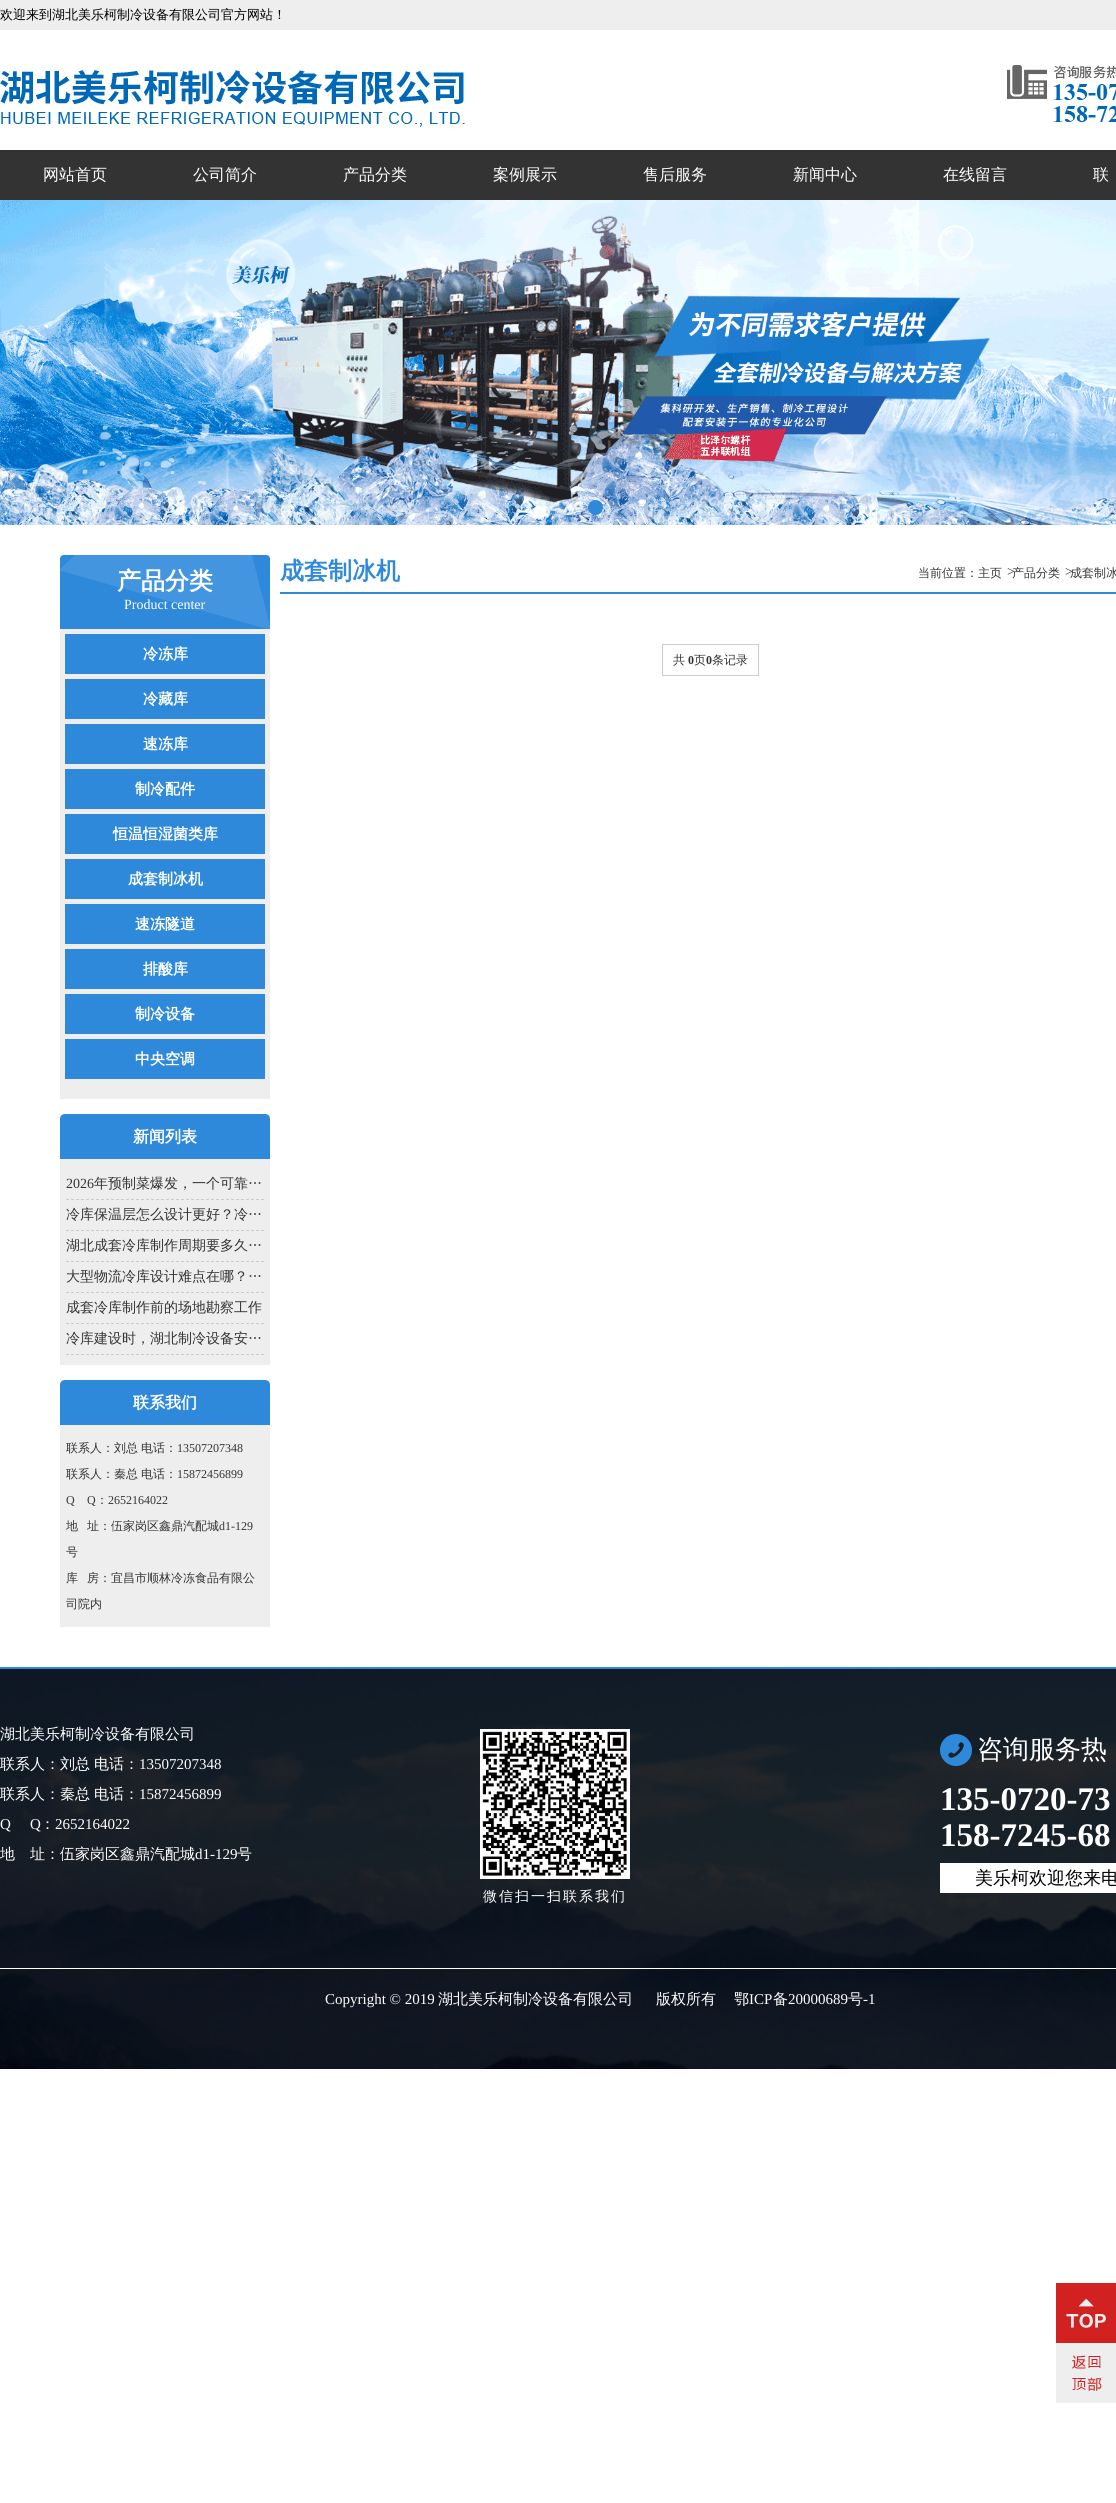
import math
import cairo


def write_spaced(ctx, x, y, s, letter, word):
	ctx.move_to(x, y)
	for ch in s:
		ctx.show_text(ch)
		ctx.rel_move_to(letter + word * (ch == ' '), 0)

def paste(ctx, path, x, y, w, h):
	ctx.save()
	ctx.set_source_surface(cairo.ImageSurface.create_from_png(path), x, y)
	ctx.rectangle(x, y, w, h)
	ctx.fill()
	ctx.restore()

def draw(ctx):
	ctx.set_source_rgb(1, 1, 1)
	ctx.paint()
	ctx.set_source_rgb(0.933, 0.933, 0.933)
	ctx.rectangle(0, 0, 1116, 30)
	ctx.fill()
	ctx.select_font_face('WenQuanYi Zen Hei Medium')
	ctx.set_font_size(13)
	ctx.set_source_rgb(0, 0, 0)
	ctx.move_to(0, 19)
	ctx.show_text('欢迎来到湖北美乐柯制冷设备有限公司官方网站！')
	paste(ctx, 'media/1.png', 0, 70, 465, 57)
	paste(ctx, 'media/2.png', 1007, 65, 109, 57)
	ctx.set_source_rgb(0.2, 0.2, 0.2)
	ctx.rectangle(0, 150, 1116, 50)
	ctx.fill()
	ctx.set_font_size(16)
	ctx.set_source_rgb(1, 1, 1)
	for x, y, s in [
		(43, 180, '网站首页'),
		(193, 180, '公司简介'),
		(343, 180, '产品分类'),
		(493, 180, '案例展示'),
		(643, 180, '售后服务'),
		(793, 180, '新闻中心'),
		(943, 180, '在线留言'),
		(1093, 180, '联'),
	]:
		ctx.move_to(x, y)
		ctx.show_text(s)
	paste(ctx, 'media/3.png', 0, 200, 1116, 325)
	ctx.set_source_rgb(0.18, 0.537, 0.859)
	ctx.arc(595.5, 507.5, 7.5, 0, 2 * math.pi)
	ctx.fill()
	ctx.set_source_rgb(0.933, 0.933, 0.933)
	ctx.rectangle(60, 555, 210, 544)
	ctx.fill()
	paste(ctx, 'media/4.png', 60, 555, 210, 74)
	ctx.select_font_face('WenQuanYi Zen Hei', cairo.FONT_SLANT_NORMAL, cairo.FONT_WEIGHT_BOLD)
	ctx.set_font_size(24)
	ctx.set_source_rgb(1, 1, 1)
	ctx.move_to(117, 589)
	ctx.show_text('产品分类')
	ctx.select_font_face('Liberation Serif')
	ctx.set_font_size(14)
	ctx.move_to(124, 609)
	ctx.show_text('Product center')
	ctx.set_source_rgb(0.18, 0.537, 0.859)
	ctx.rectangle(65, 634, 200, 40)
	ctx.fill()
	ctx.select_font_face('WenQuanYi Zen Hei', cairo.FONT_SLANT_NORMAL, cairo.FONT_WEIGHT_BOLD)
	ctx.set_font_size(15)
	ctx.set_source_rgb(1, 1, 1)
	ctx.move_to(143, 659)
	ctx.show_text('冷冻库')
	ctx.set_source_rgb(0.18, 0.537, 0.859)
	ctx.rectangle(65, 679, 200, 40)
	ctx.fill()
	ctx.set_source_rgb(1, 1, 1)
	ctx.move_to(143, 704)
	ctx.show_text('冷藏库')
	ctx.set_source_rgb(0.18, 0.537, 0.859)
	ctx.rectangle(65, 724, 200, 40)
	ctx.fill()
	ctx.set_source_rgb(1, 1, 1)
	ctx.move_to(143, 749)
	ctx.show_text('速冻库')
	ctx.set_source_rgb(0.18, 0.537, 0.859)
	ctx.rectangle(65, 769, 200, 40)
	ctx.fill()
	ctx.set_source_rgb(1, 1, 1)
	ctx.move_to(135, 794)
	ctx.show_text('制冷配件')
	ctx.set_source_rgb(0.18, 0.537, 0.859)
	ctx.rectangle(65, 814, 200, 40)
	ctx.fill()
	ctx.set_source_rgb(1, 1, 1)
	ctx.move_to(113, 839)
	ctx.show_text('恒温恒湿菌类库')
	ctx.set_source_rgb(0.18, 0.537, 0.859)
	ctx.rectangle(65, 859, 200, 40)
	ctx.fill()
	ctx.set_source_rgb(1, 1, 1)
	ctx.move_to(128, 884)
	ctx.show_text('成套制冰机')
	ctx.set_source_rgb(0.18, 0.537, 0.859)
	ctx.rectangle(65, 904, 200, 40)
	ctx.fill()
	ctx.set_source_rgb(1, 1, 1)
	ctx.move_to(135, 929)
	ctx.show_text('速冻隧道')
	ctx.set_source_rgb(0.18, 0.537, 0.859)
	ctx.rectangle(65, 949, 200, 40)
	ctx.fill()
	ctx.set_source_rgb(1, 1, 1)
	ctx.move_to(143, 974)
	ctx.show_text('排酸库')
	ctx.set_source_rgb(0.18, 0.537, 0.859)
	ctx.rectangle(65, 994, 200, 40)
	ctx.fill()
	ctx.set_source_rgb(1, 1, 1)
	ctx.move_to(135, 1019)
	ctx.show_text('制冷设备')
	ctx.set_source_rgb(0.18, 0.537, 0.859)
	ctx.rectangle(65, 1039, 200, 40)
	ctx.fill()
	ctx.set_source_rgb(1, 1, 1)
	ctx.move_to(135, 1064)
	ctx.show_text('中央空调')
	ctx.set_source_rgb(0.933, 0.933, 0.933)
	ctx.new_path()
	ctx.move_to(65, 1114)
	ctx.line_to(265, 1114)
	ctx.curve_to(268, 1114, 270, 1116, 270, 1119)
	ctx.line_to(270, 1365)
	ctx.line_to(60, 1365)
	ctx.line_to(60, 1119)
	ctx.curve_to(60, 1116, 62, 1114, 65, 1114)
	ctx.close_path()
	ctx.fill()
	ctx.set_source_rgb(0.18, 0.537, 0.859)
	ctx.new_path()
	ctx.move_to(65, 1114)
	ctx.line_to(265, 1114)
	ctx.curve_to(268, 1114, 270, 1116, 270, 1119)
	ctx.line_to(270, 1159)
	ctx.line_to(60, 1159)
	ctx.line_to(60, 1119)
	ctx.curve_to(60, 1116, 62, 1114, 65, 1114)
	ctx.close_path()
	ctx.fill()
	ctx.set_font_size(16)
	ctx.set_source_rgb(1, 1, 1)
	ctx.move_to(133, 1142)
	ctx.show_text('新闻列表')
	ctx.new_path()
	ctx.move_to(66, 1199.5)
	ctx.line_to(264, 1199.5)
	ctx.set_source_rgb(0.8, 0.8, 0.8)
	ctx.set_line_width(1)
	ctx.set_dash([3, 2])
	ctx.stroke()
	ctx.select_font_face('Liberation Serif')
	ctx.set_font_size(14)
	ctx.set_source_rgb(0.2, 0.2, 0.2)
	ctx.move_to(66, 1188)
	ctx.show_text('2026')
	ctx.select_font_face('WenQuanYi Zen Hei Medium')
	ctx.move_to(94, 1188)
	ctx.show_text('年预制菜爆发，一个可靠…')
	ctx.new_path()
	ctx.move_to(66, 1230.5)
	ctx.line_to(264, 1230.5)
	ctx.set_source_rgb(0.8, 0.8, 0.8)
	ctx.stroke()
	ctx.set_source_rgb(0.2, 0.2, 0.2)
	ctx.move_to(66, 1219)
	ctx.show_text('冷库保温层怎么设计更好？冷…')
	ctx.new_path()
	ctx.move_to(66, 1261.5)
	ctx.line_to(264, 1261.5)
	ctx.set_source_rgb(0.8, 0.8, 0.8)
	ctx.stroke()
	ctx.set_source_rgb(0.2, 0.2, 0.2)
	ctx.move_to(66, 1250)
	ctx.show_text('湖北成套冷库制作周期要多久…')
	ctx.new_path()
	ctx.move_to(66, 1292.5)
	ctx.line_to(264, 1292.5)
	ctx.set_source_rgb(0.8, 0.8, 0.8)
	ctx.stroke()
	ctx.set_source_rgb(0.2, 0.2, 0.2)
	ctx.move_to(66, 1281)
	ctx.show_text('大型物流冷库设计难点在哪？…')
	ctx.new_path()
	ctx.move_to(66, 1323.5)
	ctx.line_to(264, 1323.5)
	ctx.set_source_rgb(0.8, 0.8, 0.8)
	ctx.stroke()
	ctx.set_source_rgb(0.2, 0.2, 0.2)
	ctx.move_to(66, 1312)
	ctx.show_text('成套冷库制作前的场地勘察工作')
	ctx.new_path()
	ctx.move_to(66, 1354.5)
	ctx.line_to(264, 1354.5)
	ctx.set_source_rgb(0.8, 0.8, 0.8)
	ctx.stroke()
	ctx.set_source_rgb(0.2, 0.2, 0.2)
	ctx.move_to(66, 1343)
	ctx.show_text('冷库建设时，湖北制冷设备安…')
	ctx.set_source_rgb(0.933, 0.933, 0.933)
	ctx.new_path()
	ctx.move_to(65, 1380)
	ctx.line_to(265, 1380)
	ctx.curve_to(268, 1380, 270, 1382, 270, 1385)
	ctx.line_to(270, 1627)
	ctx.line_to(60, 1627)
	ctx.line_to(60, 1385)
	ctx.curve_to(60, 1382, 62, 1380, 65, 1380)
	ctx.close_path()
	ctx.fill()
	ctx.set_source_rgb(0.18, 0.537, 0.859)
	ctx.new_path()
	ctx.move_to(65, 1380)
	ctx.line_to(265, 1380)
	ctx.curve_to(268, 1380, 270, 1382, 270, 1385)
	ctx.line_to(270, 1425)
	ctx.line_to(60, 1425)
	ctx.line_to(60, 1385)
	ctx.curve_to(60, 1382, 62, 1380, 65, 1380)
	ctx.close_path()
	ctx.fill()
	ctx.select_font_face('WenQuanYi Zen Hei', cairo.FONT_SLANT_NORMAL, cairo.FONT_WEIGHT_BOLD)
	ctx.set_font_size(16)
	ctx.set_source_rgb(1, 1, 1)
	ctx.move_to(133, 1408)
	ctx.show_text('联系我们')
	ctx.select_font_face('WenQuanYi Zen Hei Medium')
	ctx.set_font_size(12)
	ctx.set_source_rgb(0.2, 0.2, 0.2)
	ctx.move_to(66, 1452)
	ctx.show_text('联系人：刘总')
	ctx.move_to(141, 1452)
	ctx.show_text('电话：')
	ctx.select_font_face('Liberation Serif')
	ctx.move_to(177, 1452)
	ctx.show_text('13507207348')
	ctx.select_font_face('WenQuanYi Zen Hei Medium')
	ctx.move_to(66, 1478)
	ctx.show_text('联系人：秦总')
	ctx.move_to(141, 1478)
	ctx.show_text('电话：')
	ctx.select_font_face('Liberation Serif')
	for x, y, s in [
		(177, 1478, '15872456899'),
		(66, 1504, 'Q'),
		(87, 1504, 'Q'),
	]:
		ctx.move_to(x, y)
		ctx.show_text(s)
	ctx.select_font_face('WenQuanYi Zen Hei Medium')
	ctx.move_to(96, 1504)
	ctx.show_text('：')
	ctx.select_font_face('Liberation Serif')
	ctx.move_to(108, 1504)
	ctx.show_text('2652164022')
	ctx.select_font_face('WenQuanYi Zen Hei Medium')
	ctx.move_to(66, 1530)
	ctx.show_text('地')
	ctx.move_to(87, 1530)
	ctx.show_text('址：伍家岗区鑫鼎汽配城')
	ctx.select_font_face('Liberation Serif')
	ctx.move_to(219, 1530)
	ctx.show_text('d1-129')
	ctx.select_font_face('WenQuanYi Zen Hei Medium')
	for x, y, s in [
		(66, 1556, '号'),
		(66, 1582, '库'),
		(87, 1582, '房：宜昌市顺林冷冻食品有限公'),
		(66, 1608, '司院内'),
	]:
		ctx.move_to(x, y)
		ctx.show_text(s)
	ctx.set_source_rgb(0.18, 0.537, 0.859)
	ctx.rectangle(280, 592, 836, 2)
	ctx.fill()
	ctx.select_font_face('WenQuanYi Zen Hei', cairo.FONT_SLANT_NORMAL, cairo.FONT_WEIGHT_BOLD)
	ctx.set_font_size(24)
	ctx.move_to(280, 579)
	ctx.show_text('成套制冰机')
	ctx.select_font_face('WenQuanYi Zen Hei Medium')
	ctx.set_font_size(12)
	ctx.set_source_rgb(0.2, 0.2, 0.2)
	ctx.move_to(918, 577)
	ctx.show_text('当前位置：主页')
	ctx.select_font_face('Liberation Serif')
	ctx.set_font_size(14)
	ctx.move_to(1007, 576)
	ctx.show_text('>')
	ctx.select_font_face('WenQuanYi Zen Hei Medium')
	ctx.set_font_size(12)
	ctx.move_to(1012, 577)
	ctx.show_text('产品分类')
	ctx.select_font_face('Liberation Serif')
	ctx.set_font_size(14)
	ctx.move_to(1065, 576)
	ctx.show_text('>')
	ctx.select_font_face('WenQuanYi Zen Hei Medium')
	ctx.set_font_size(12)
	ctx.move_to(1070, 577)
	ctx.show_text('成套制冰')
	ctx.rectangle(662.5, 644.5, 96, 31)
	ctx.set_source_rgb(0.8, 0.8, 0.8)
	ctx.set_dash([])
	ctx.stroke()
	ctx.set_source_rgb(0.2, 0.2, 0.2)
	ctx.move_to(673, 664)
	ctx.show_text('共')
	ctx.select_font_face('Liberation Serif', cairo.FONT_SLANT_NORMAL, cairo.FONT_WEIGHT_BOLD)
	ctx.move_to(688, 664)
	ctx.show_text('0')
	ctx.select_font_face('WenQuanYi Zen Hei Medium')
	ctx.move_to(694, 664)
	ctx.show_text('页')
	ctx.select_font_face('Liberation Serif', cairo.FONT_SLANT_NORMAL, cairo.FONT_WEIGHT_BOLD)
	ctx.move_to(706, 664)
	ctx.show_text('0')
	ctx.select_font_face('WenQuanYi Zen Hei Medium')
	ctx.move_to(712, 664)
	ctx.show_text('条记录')
	paste(ctx, 'media/5.png', 0, 1669, 1116, 400)
	ctx.set_source_rgb(0.18, 0.537, 0.859)
	ctx.rectangle(0, 1667, 1116, 2)
	ctx.fill()
	ctx.set_font_size(15)
	ctx.set_source_rgb(1, 1, 1)
	for x, y, s in [
		(0, 1739, '湖北美乐柯制冷设备有限公司'),
		(0, 1769, '联系人：刘总'),
		(94, 1769, '电话：'),
	]:
		ctx.move_to(x, y)
		ctx.show_text(s)
	ctx.select_font_face('Liberation Serif')
	ctx.move_to(139, 1769)
	ctx.show_text('13507207348')
	ctx.select_font_face('WenQuanYi Zen Hei Medium')
	ctx.move_to(0, 1799)
	ctx.show_text('联系人：秦总')
	ctx.move_to(94, 1799)
	ctx.show_text('电话：')
	ctx.select_font_face('Liberation Serif')
	for x, y, s in [
		(139, 1799, '15872456899'),
		(0, 1829, 'Q'),
		(30, 1829, 'Q'),
	]:
		ctx.move_to(x, y)
		ctx.show_text(s)
	ctx.select_font_face('WenQuanYi Zen Hei Medium')
	ctx.move_to(40, 1829)
	ctx.show_text('：')
	ctx.select_font_face('Liberation Serif')
	ctx.move_to(55, 1829)
	ctx.show_text('2652164022')
	ctx.select_font_face('WenQuanYi Zen Hei Medium')
	ctx.move_to(0, 1859)
	ctx.show_text('地')
	ctx.move_to(30, 1859)
	ctx.show_text('址：伍家岗区鑫鼎汽配城')
	ctx.select_font_face('Liberation Serif')
	ctx.move_to(195, 1859)
	ctx.show_text('d1-129')
	ctx.select_font_face('WenQuanYi Zen Hei Medium')
	ctx.move_to(237, 1859)
	ctx.show_text('号')
	paste(ctx, 'media/6.png', 940, 1734, 32, 32)
	ctx.set_font_size(26)
	ctx.move_to(977, 1758)
	ctx.show_text('咨询服务热')
	ctx.select_font_face('Liberation Serif', cairo.FONT_SLANT_NORMAL, cairo.FONT_WEIGHT_BOLD)
	ctx.set_font_size(33)
	ctx.move_to(940, 1810)
	ctx.show_text('135-0720-73')
	ctx.move_to(940, 1846)
	ctx.show_text('158-7245-68')
	ctx.rectangle(940, 1863, 176, 30)
	ctx.fill()
	ctx.select_font_face('WenQuanYi Zen Hei Medium')
	ctx.set_font_size(18)
	ctx.set_source_rgb(0, 0, 0)
	ctx.move_to(975, 1884)
	ctx.show_text('美乐柯欢迎您来电')
	paste(ctx, 'media/7.png', 480, 1729, 150, 150)
	ctx.set_font_size(14)
	ctx.set_source_rgb(1, 1, 1)
	write_spaced(ctx, 483, 1901, '微信扫一扫联系我们', 2, 0)
	ctx.rectangle(0, 1968, 1116, 1)
	ctx.fill()
	ctx.select_font_face('Liberation Serif')
	ctx.set_font_size(15)
	ctx.move_to(325, 2004)
	ctx.show_text('Copyright © 2019')
	ctx.select_font_face('WenQuanYi Zen Hei Medium')
	for x, y, s in [
		(438, 2004, '湖北美乐柯制冷设备有限公司'),
		(656, 2004, '版权所有'),
		(734, 2004, '鄂'),
	]:
		ctx.move_to(x, y)
		ctx.show_text(s)
	ctx.select_font_face('Liberation Serif')
	ctx.move_to(749, 2004)
	ctx.show_text('ICP')
	ctx.select_font_face('WenQuanYi Zen Hei Medium')
	ctx.move_to(773, 2004)
	ctx.show_text('备')
	ctx.select_font_face('Liberation Serif')
	ctx.move_to(788, 2004)
	ctx.show_text('20000689')
	ctx.select_font_face('WenQuanYi Zen Hei Medium')
	ctx.move_to(848, 2004)
	ctx.show_text('号')
	ctx.select_font_face('Liberation Serif')
	ctx.move_to(863, 2004)
	ctx.show_text('-1')
	paste(ctx, 'media/8.png', 1056, 2283, 60, 120)


surface = cairo.ImageSurface(cairo.FORMAT_RGB24, 1116, 2503)
ctx = cairo.Context(surface)
options = cairo.FontOptions()
options.set_hint_metrics(cairo.HINT_METRICS_OFF)
options.set_hint_style(cairo.HINT_STYLE_NONE)
ctx.set_font_options(options)
ctx.set_miter_limit(4)
draw(ctx)
surface.write_to_png('image.png')
